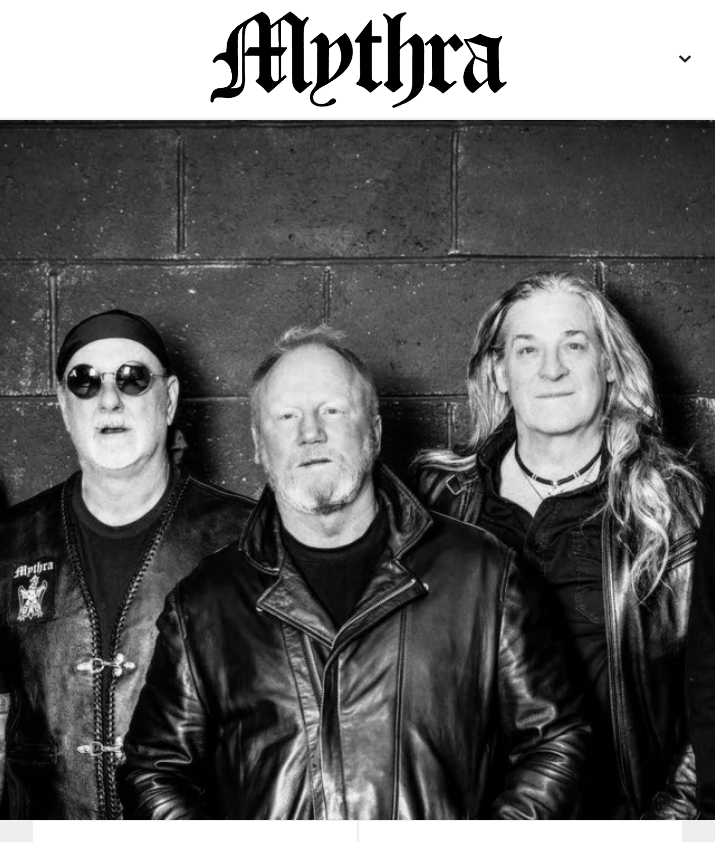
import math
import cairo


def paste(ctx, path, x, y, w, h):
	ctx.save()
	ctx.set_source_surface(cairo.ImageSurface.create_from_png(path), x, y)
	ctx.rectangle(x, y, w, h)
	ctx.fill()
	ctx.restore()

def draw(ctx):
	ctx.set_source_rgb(0.933, 0.933, 0.933)
	ctx.paint()
	ctx.set_source_rgb(1, 1, 1)
	ctx.rectangle(0, 0, 715, 118)
	ctx.fill()
	paste(ctx, 'media/1.png', 210, 11, 297, 97)
	paste(ctx, 'media/2.png', 679, 55, 12, 8)
	paste(ctx, 'media/3.png', 0, 120, 715, 700)
	ctx.rectangle(33, 821, 324, 21)
	ctx.fill()
	ctx.rectangle(359, 821, 323, 21)
	ctx.fill()


surface = cairo.ImageSurface(cairo.FORMAT_RGB24, 715, 842)
ctx = cairo.Context(surface)
options = cairo.FontOptions()
options.set_hint_metrics(cairo.HINT_METRICS_OFF)
options.set_hint_style(cairo.HINT_STYLE_NONE)
ctx.set_font_options(options)
ctx.set_miter_limit(4)
draw(ctx)
surface.write_to_png('image.png')
